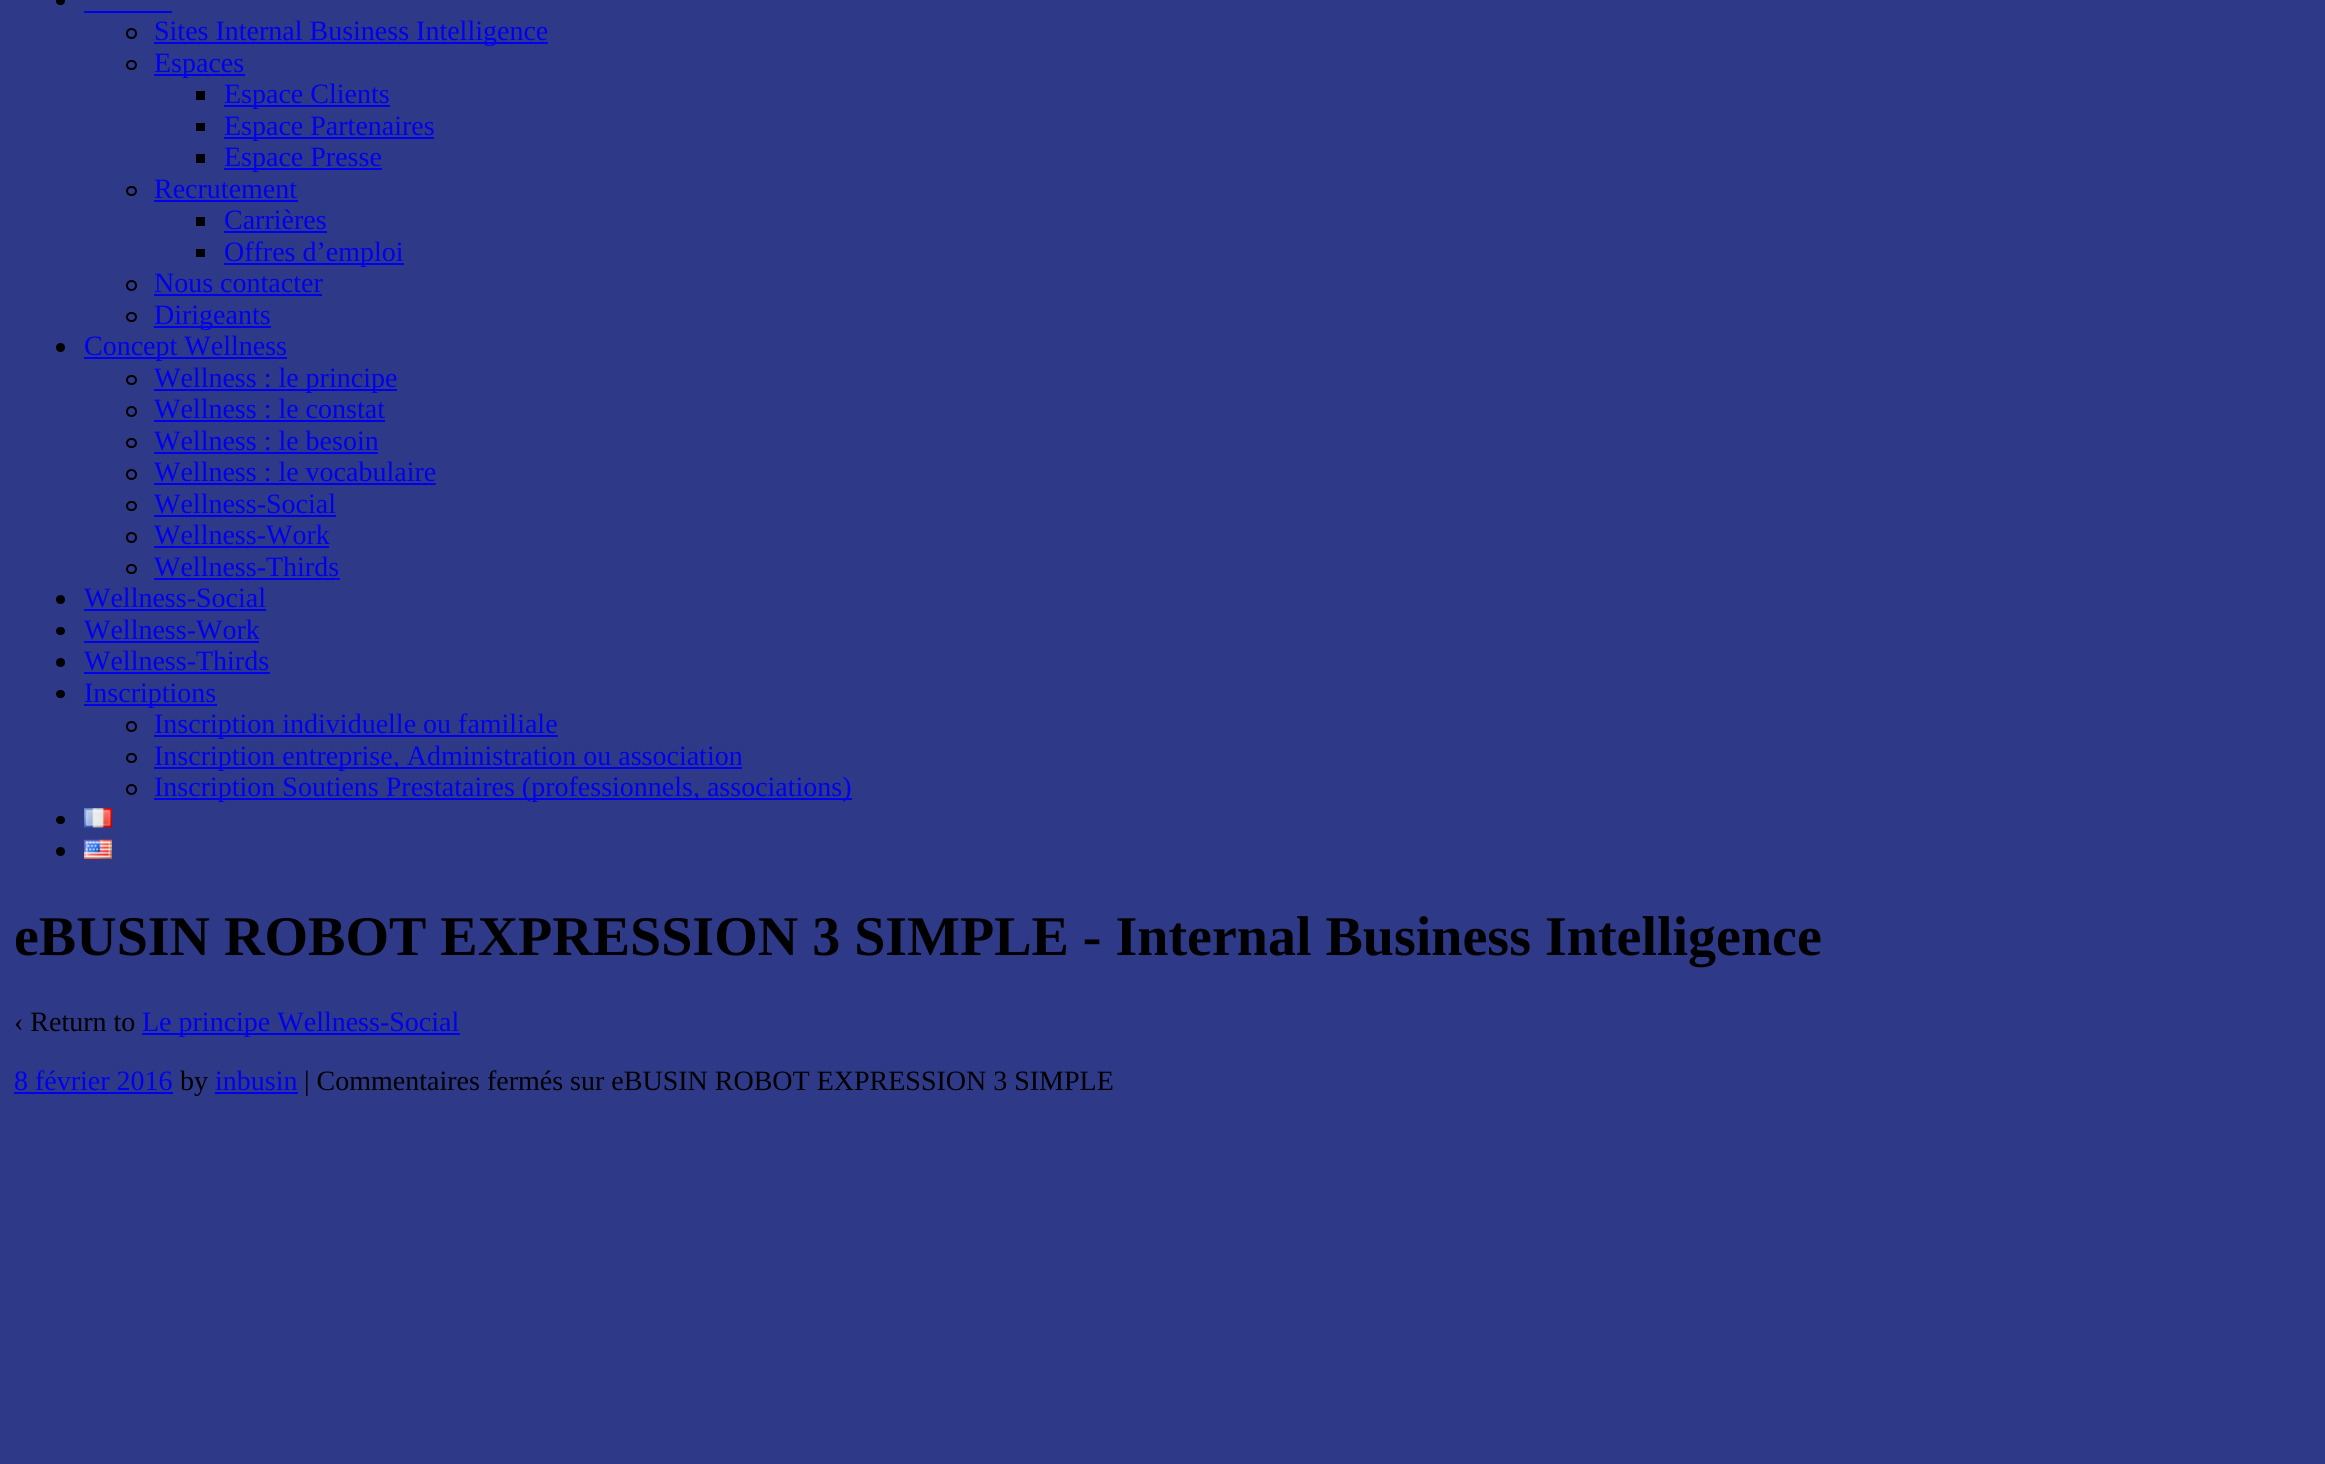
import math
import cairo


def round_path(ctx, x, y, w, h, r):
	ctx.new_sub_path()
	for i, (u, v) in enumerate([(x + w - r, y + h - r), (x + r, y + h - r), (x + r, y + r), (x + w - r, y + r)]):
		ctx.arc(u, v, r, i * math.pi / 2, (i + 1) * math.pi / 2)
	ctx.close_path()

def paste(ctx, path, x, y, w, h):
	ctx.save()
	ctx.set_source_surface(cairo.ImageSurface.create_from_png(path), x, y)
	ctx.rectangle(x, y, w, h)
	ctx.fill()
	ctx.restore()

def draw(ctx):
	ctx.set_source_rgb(0.18, 0.224, 0.533)
	ctx.paint()
	ctx.set_source_rgb(0, 0, 0)
	round_path(ctx, 56, -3, 9, 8, 4)
	ctx.fill()
	ctx.set_source_rgb(0, 0, 0.933)
	ctx.rectangle(84, 11, 88, 2)
	ctx.fill()
	ctx.arc(131.5, 33.5, 4.5, 0, 2 * math.pi)
	ctx.set_source_rgb(0, 0, 0)
	ctx.stroke()
	ctx.set_source_rgb(0, 0, 0.933)
	ctx.rectangle(154, 42, 394, 2)
	ctx.fill()
	ctx.select_font_face('Liberation Serif')
	ctx.set_font_size(28)
	ctx.move_to(154, 40)
	ctx.show_text('Sites Internal Business Intelligence')
	round_path(ctx, 127, 61, 9, 8, 4)
	ctx.set_source_rgb(0, 0, 0)
	ctx.stroke()
	ctx.set_source_rgb(0, 0, 0.933)
	ctx.rectangle(154, 74, 91, 2)
	ctx.fill()
	ctx.move_to(154, 72)
	ctx.show_text('Espaces')
	ctx.set_source_rgb(0, 0, 0)
	ctx.rectangle(196, 91, 9, 9)
	ctx.fill()
	ctx.set_source_rgb(0, 0, 0.933)
	ctx.rectangle(224, 105, 166, 2)
	ctx.fill()
	ctx.move_to(224, 103)
	ctx.show_text('Espace Clients')
	ctx.set_source_rgb(0, 0, 0)
	ctx.rectangle(196, 123, 9, 8)
	ctx.fill()
	ctx.set_source_rgb(0, 0, 0.933)
	ctx.rectangle(224, 137, 210, 2)
	ctx.fill()
	ctx.move_to(224, 135)
	ctx.show_text('Espace Partenaires')
	ctx.set_source_rgb(0, 0, 0)
	ctx.rectangle(196, 154, 9, 9)
	ctx.fill()
	ctx.set_source_rgb(0, 0, 0.933)
	ctx.rectangle(224, 168, 158, 2)
	ctx.fill()
	ctx.move_to(224, 166)
	ctx.show_text('Espace Presse')
	round_path(ctx, 127, 187, 9, 8, 4)
	ctx.set_source_rgb(0, 0, 0)
	ctx.stroke()
	ctx.set_source_rgb(0, 0, 0.933)
	ctx.move_to(154, 198)
	ctx.show_text('Recrutement')
	ctx.rectangle(154, 200, 144, 2)
	ctx.fill()
	ctx.set_source_rgb(0, 0, 0)
	ctx.rectangle(196, 217, 9, 9)
	ctx.fill()
	ctx.set_source_rgb(0, 0, 0.933)
	ctx.move_to(224, 229)
	ctx.show_text('Carrières')
	ctx.rectangle(224, 231, 103, 2)
	ctx.fill()
	ctx.set_source_rgb(0, 0, 0)
	ctx.rectangle(196, 249, 9, 8)
	ctx.fill()
	ctx.set_source_rgb(0, 0, 0.933)
	ctx.rectangle(224, 263, 180, 2)
	ctx.fill()
	ctx.move_to(224, 261)
	ctx.show_text('Offres d’emploi')
	ctx.new_path()
	ctx.arc(131.5, 285.5, 4.5, 0, 2 * math.pi)
	ctx.set_source_rgb(0, 0, 0)
	ctx.stroke()
	ctx.set_source_rgb(0, 0, 0.933)
	ctx.move_to(154, 292)
	ctx.show_text('Nous contacter')
	ctx.rectangle(154, 294, 168, 2)
	ctx.fill()
	round_path(ctx, 127, 313, 9, 8, 4)
	ctx.set_source_rgb(0, 0, 0)
	ctx.stroke()
	ctx.set_source_rgb(0, 0, 0.933)
	ctx.rectangle(154, 326, 117, 2)
	ctx.fill()
	ctx.move_to(154, 324)
	ctx.show_text('Dirigeants')
	ctx.set_source_rgb(0, 0, 0)
	ctx.new_path()
	ctx.arc(60.5, 347.5, 4.5, 0, 2 * math.pi)
	ctx.fill()
	ctx.set_source_rgb(0, 0, 0.933)
	ctx.rectangle(84, 357, 203, 2)
	ctx.fill()
	ctx.move_to(84, 355)
	ctx.show_text('Concept Wellness')
	round_path(ctx, 127, 376, 9, 8, 4)
	ctx.set_source_rgb(0, 0, 0)
	ctx.stroke()
	ctx.set_source_rgb(0, 0, 0.933)
	ctx.rectangle(154, 389, 243, 2)
	ctx.fill()
	ctx.move_to(154, 387)
	ctx.show_text('Wellness : le principe')
	ctx.new_path()
	ctx.arc(131.5, 411.5, 4.5, 0, 2 * math.pi)
	ctx.set_source_rgb(0, 0, 0)
	ctx.stroke()
	ctx.set_source_rgb(0, 0, 0.933)
	ctx.move_to(154, 418)
	ctx.show_text('Wellness : le constat')
	ctx.rectangle(154, 420, 231, 2)
	ctx.fill()
	round_path(ctx, 127, 439, 9, 8, 4)
	ctx.set_source_rgb(0, 0, 0)
	ctx.stroke()
	ctx.set_source_rgb(0, 0, 0.933)
	ctx.move_to(154, 450)
	ctx.show_text('Wellness : le besoin')
	ctx.rectangle(154, 452, 224, 2)
	ctx.fill()
	ctx.arc(131.5, 474.5, 4.5, 0, 2 * math.pi)
	ctx.set_source_rgb(0, 0, 0)
	ctx.stroke()
	ctx.set_source_rgb(0, 0, 0.933)
	ctx.move_to(154, 481)
	ctx.show_text('Wellness : le vocabulaire')
	ctx.rectangle(154, 483, 282, 2)
	ctx.fill()
	round_path(ctx, 127, 502, 9, 8, 4)
	ctx.set_source_rgb(0, 0, 0)
	ctx.stroke()
	ctx.set_source_rgb(0, 0, 0.933)
	ctx.move_to(154, 513)
	ctx.show_text('Wellness-Social')
	ctx.rectangle(154, 515, 182, 2)
	ctx.fill()
	ctx.arc(131.5, 537.5, 4.5, 0, 2 * math.pi)
	ctx.set_source_rgb(0, 0, 0)
	ctx.stroke()
	ctx.set_source_rgb(0, 0, 0.933)
	ctx.move_to(154, 544)
	ctx.show_text('Wellness-Work')
	ctx.rectangle(154, 546, 175, 2)
	ctx.fill()
	round_path(ctx, 127, 565, 9, 8, 4)
	ctx.set_source_rgb(0, 0, 0)
	ctx.stroke()
	ctx.set_source_rgb(0, 0, 0.933)
	ctx.move_to(154, 576)
	ctx.show_text('Wellness-Thirds')
	ctx.rectangle(154, 578, 186, 2)
	ctx.fill()
	ctx.set_source_rgb(0, 0, 0)
	ctx.arc(60.5, 599.5, 4.5, 0, 2 * math.pi)
	ctx.fill()
	ctx.set_source_rgb(0, 0, 0.933)
	ctx.move_to(84, 607)
	ctx.show_text('Wellness-Social')
	ctx.rectangle(84, 609, 182, 2)
	ctx.fill()
	ctx.set_source_rgb(0, 0, 0)
	round_path(ctx, 56, 627, 9, 8, 4)
	ctx.fill()
	ctx.set_source_rgb(0, 0, 0.933)
	ctx.move_to(84, 639)
	ctx.show_text('Wellness-Work')
	ctx.rectangle(84, 641, 175, 2)
	ctx.fill()
	ctx.set_source_rgb(0, 0, 0)
	ctx.arc(60.5, 662.5, 4.5, 0, 2 * math.pi)
	ctx.fill()
	ctx.set_source_rgb(0, 0, 0.933)
	ctx.move_to(84, 670)
	ctx.show_text('Wellness-Thirds')
	ctx.rectangle(84, 672, 186, 2)
	ctx.fill()
	ctx.set_source_rgb(0, 0, 0)
	round_path(ctx, 56, 690, 9, 8, 4)
	ctx.fill()
	ctx.set_source_rgb(0, 0, 0.933)
	ctx.rectangle(84, 704, 133, 2)
	ctx.fill()
	ctx.move_to(84, 702)
	ctx.show_text('Inscriptions')
	ctx.new_path()
	ctx.arc(131.5, 726.5, 4.5, 0, 2 * math.pi)
	ctx.set_source_rgb(0, 0, 0)
	ctx.stroke()
	ctx.set_source_rgb(0, 0, 0.933)
	ctx.rectangle(154, 735, 404, 2)
	ctx.fill()
	ctx.move_to(154, 733)
	ctx.show_text('Inscription individuelle ou familiale')
	round_path(ctx, 127, 754, 9, 8, 4)
	ctx.set_source_rgb(0, 0, 0)
	ctx.stroke()
	ctx.set_source_rgb(0, 0, 0.933)
	ctx.rectangle(154, 767, 588, 2)
	ctx.fill()
	ctx.move_to(154, 765)
	ctx.show_text('Inscription entreprise, Administration ou association')
	ctx.new_path()
	ctx.arc(131.5, 789.5, 4.5, 0, 2 * math.pi)
	ctx.set_source_rgb(0, 0, 0)
	ctx.stroke()
	ctx.set_source_rgb(0, 0, 0.933)
	ctx.rectangle(154, 798, 698, 2)
	ctx.fill()
	ctx.move_to(154, 796)
	ctx.show_text('Inscription Soutiens Prestataires (professionnels, associations)')
	ctx.set_source_rgb(0, 0, 0)
	round_path(ctx, 56, 816, 9, 8, 4)
	ctx.fill()
	paste(ctx, 'media/1.png', 84, 808, 28, 20)
	ctx.arc(60.5, 851.5, 4.5, 0, 2 * math.pi)
	ctx.fill()
	paste(ctx, 'media/2.png', 84, 839, 28, 20)
	ctx.select_font_face('Liberation Serif', cairo.FONT_SLANT_NORMAL, cairo.FONT_WEIGHT_BOLD)
	ctx.set_font_size(56)
	ctx.move_to(14, 955)
	ctx.show_text('eBUSIN ROBOT EXPRESSION 3 SIMPLE - Internal Business Intelligence')
	ctx.select_font_face('Liberation Serif')
	ctx.set_font_size(28)
	ctx.move_to(14, 1031)
	ctx.show_text('‹ Return to')
	ctx.set_source_rgb(0, 0, 0.933)
	ctx.rectangle(142, 1033, 318, 2)
	ctx.fill()
	ctx.move_to(142, 1031)
	ctx.show_text('Le principe Wellness-Social')
	ctx.move_to(14, 1090)
	ctx.show_text('8 février 2016')
	ctx.rectangle(14, 1092, 159, 2)
	ctx.fill()
	ctx.set_source_rgb(0, 0, 0)
	ctx.move_to(180, 1090)
	ctx.show_text('by')
	ctx.set_source_rgb(0, 0, 0.933)
	ctx.move_to(215, 1090)
	ctx.show_text('inbusin')
	ctx.rectangle(215, 1092, 83, 2)
	ctx.fill()
	ctx.set_source_rgb(0, 0, 0)
	ctx.move_to(304, 1090)
	ctx.show_text('| Commentaires fermés sur eBUSIN ROBOT EXPRESSION 3 SIMPLE')


surface = cairo.ImageSurface(cairo.FORMAT_RGB24, 2325, 1464)
ctx = cairo.Context(surface)
options = cairo.FontOptions()
options.set_hint_metrics(cairo.HINT_METRICS_OFF)
options.set_hint_style(cairo.HINT_STYLE_NONE)
ctx.set_font_options(options)
ctx.set_miter_limit(4)
draw(ctx)
surface.write_to_png('image.png')
